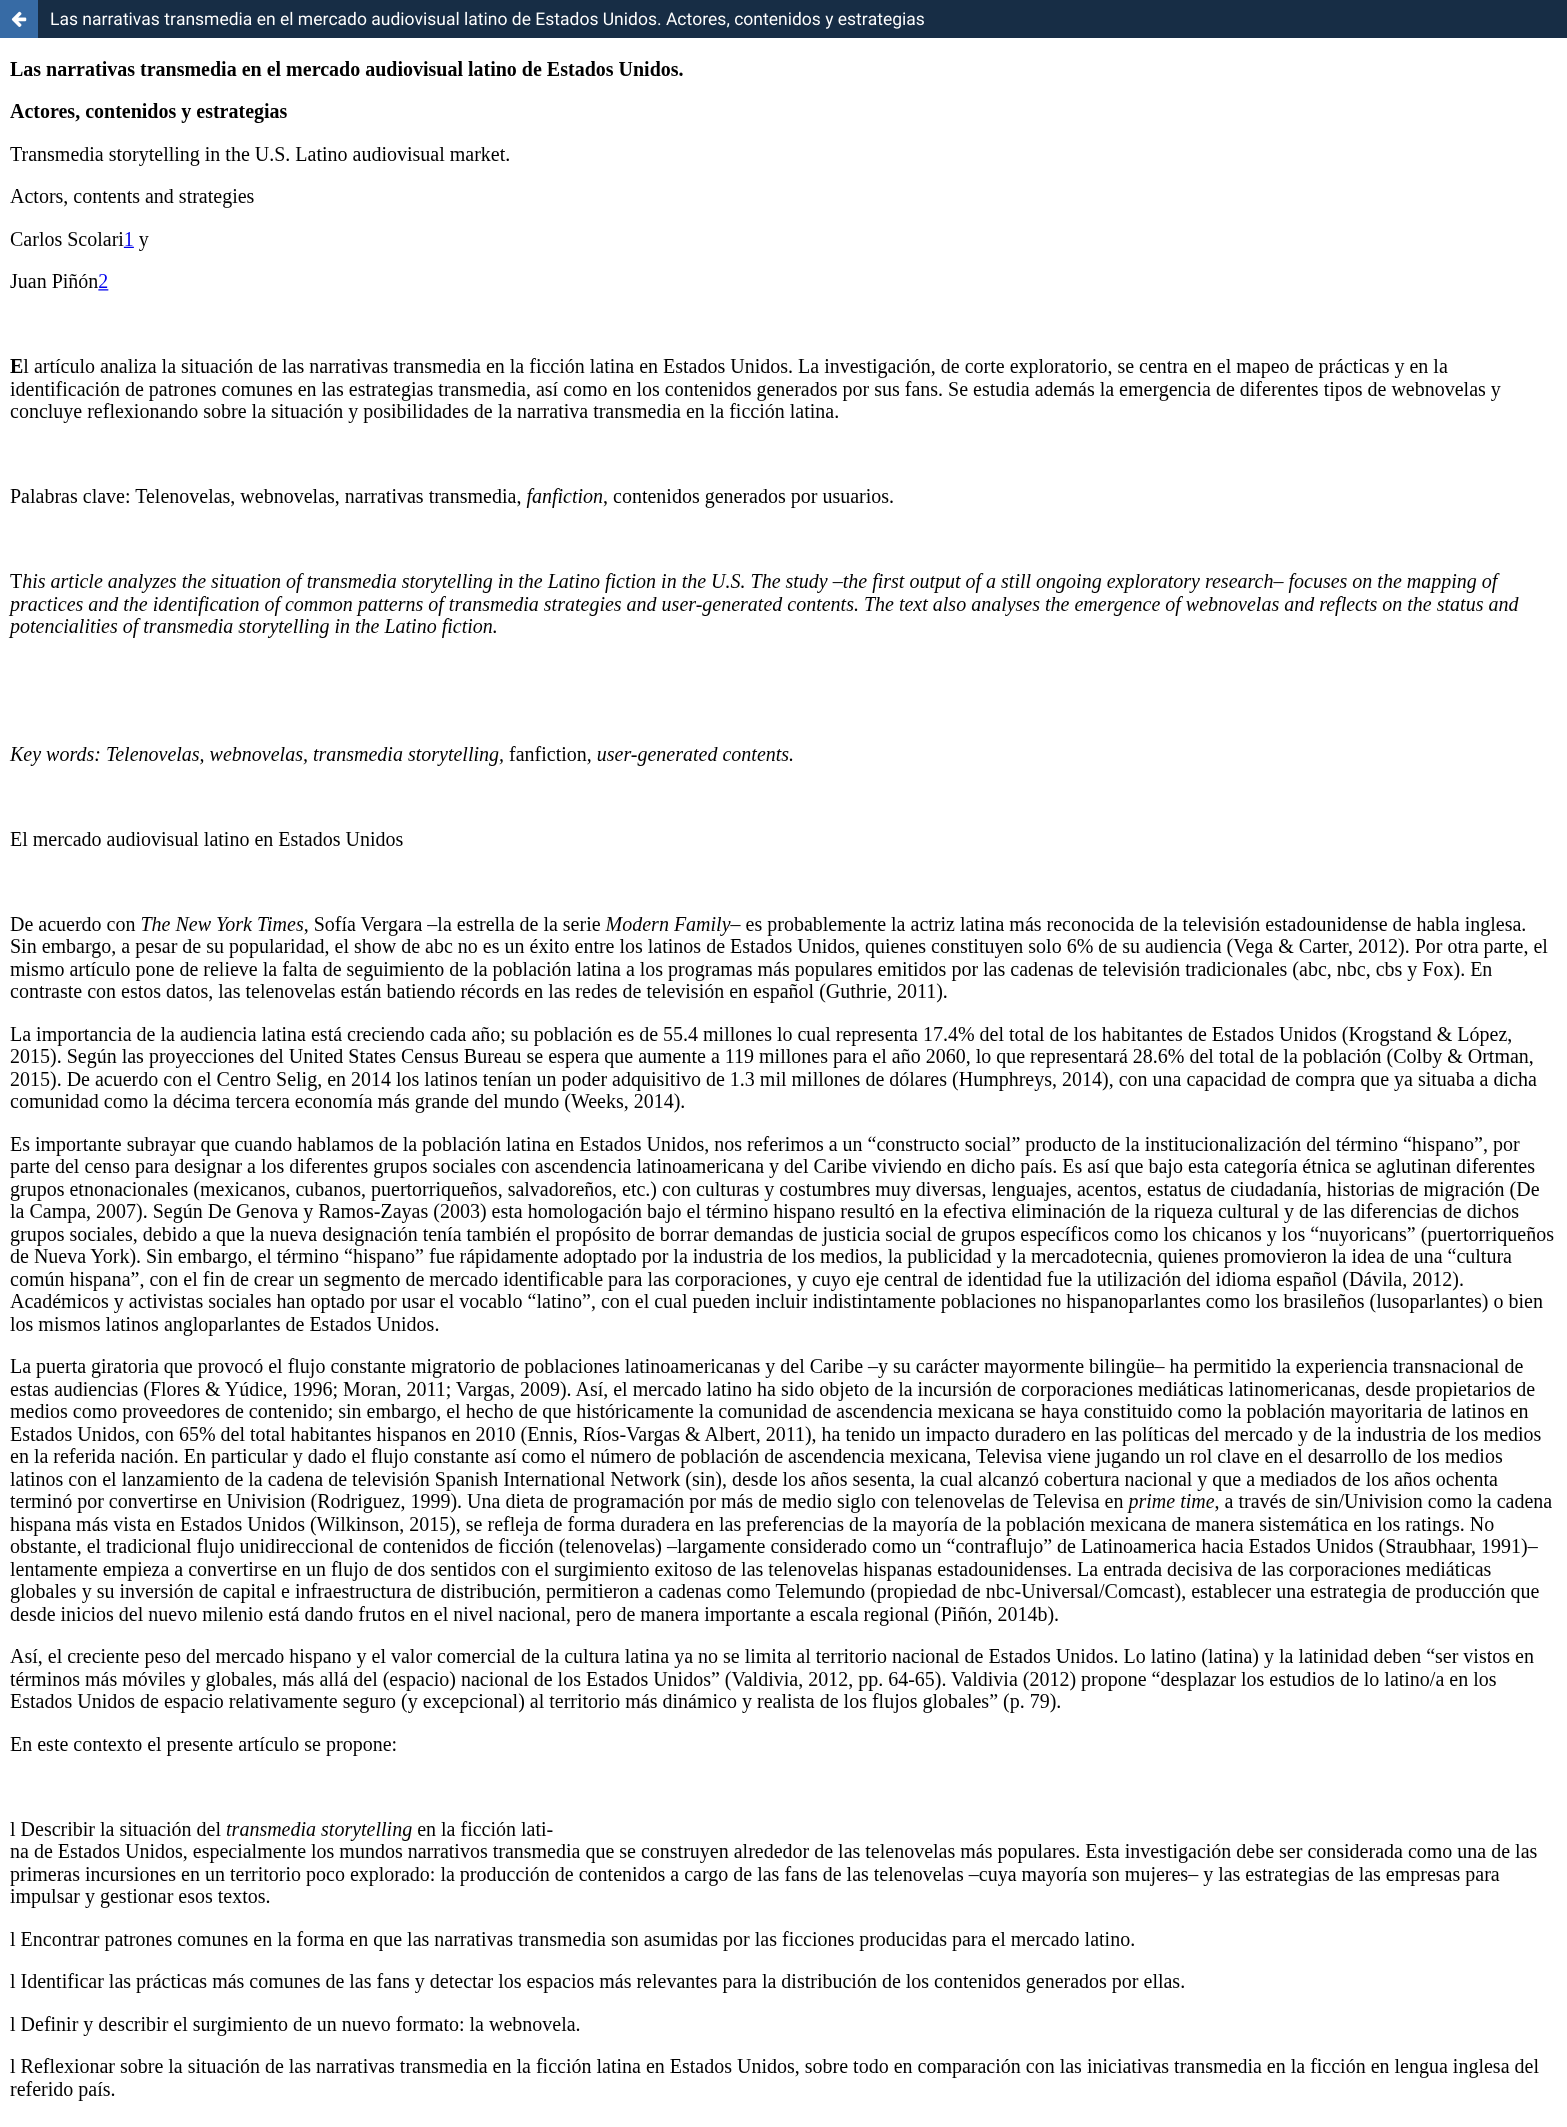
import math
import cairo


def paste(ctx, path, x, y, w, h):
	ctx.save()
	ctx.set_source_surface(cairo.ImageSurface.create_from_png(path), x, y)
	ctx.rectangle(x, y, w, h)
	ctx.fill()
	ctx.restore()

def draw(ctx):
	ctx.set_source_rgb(1, 1, 1)
	ctx.paint()
	ctx.set_source_rgb(0.09, 0.176, 0.271)
	ctx.rectangle(38, 0, 1529, 38)
	ctx.fill()
	ctx.set_source_rgb(0.216, 0.42, 0.647)
	ctx.rectangle(0, 0, 38, 38)
	ctx.fill()
	paste(ctx, 'media/1.png', 11, 11, 16, 16)
	ctx.select_font_face('Roboto')
	ctx.set_font_size(17.5)
	ctx.set_source_rgb(1, 1, 1)
	ctx.move_to(50, 25)
	ctx.show_text('Las narrativas transmedia en el mercado audiovisual latino de Estados Unidos. Actores, contenidos y estrategias')
	paste(ctx, 'media/2.png', 8, 61, 1546, 2040)


surface = cairo.ImageSurface(cairo.FORMAT_RGB24, 1567, 2127)
ctx = cairo.Context(surface)
options = cairo.FontOptions()
options.set_hint_metrics(cairo.HINT_METRICS_OFF)
options.set_hint_style(cairo.HINT_STYLE_NONE)
ctx.set_font_options(options)
ctx.set_miter_limit(4)
draw(ctx)
surface.write_to_png('image.png')
